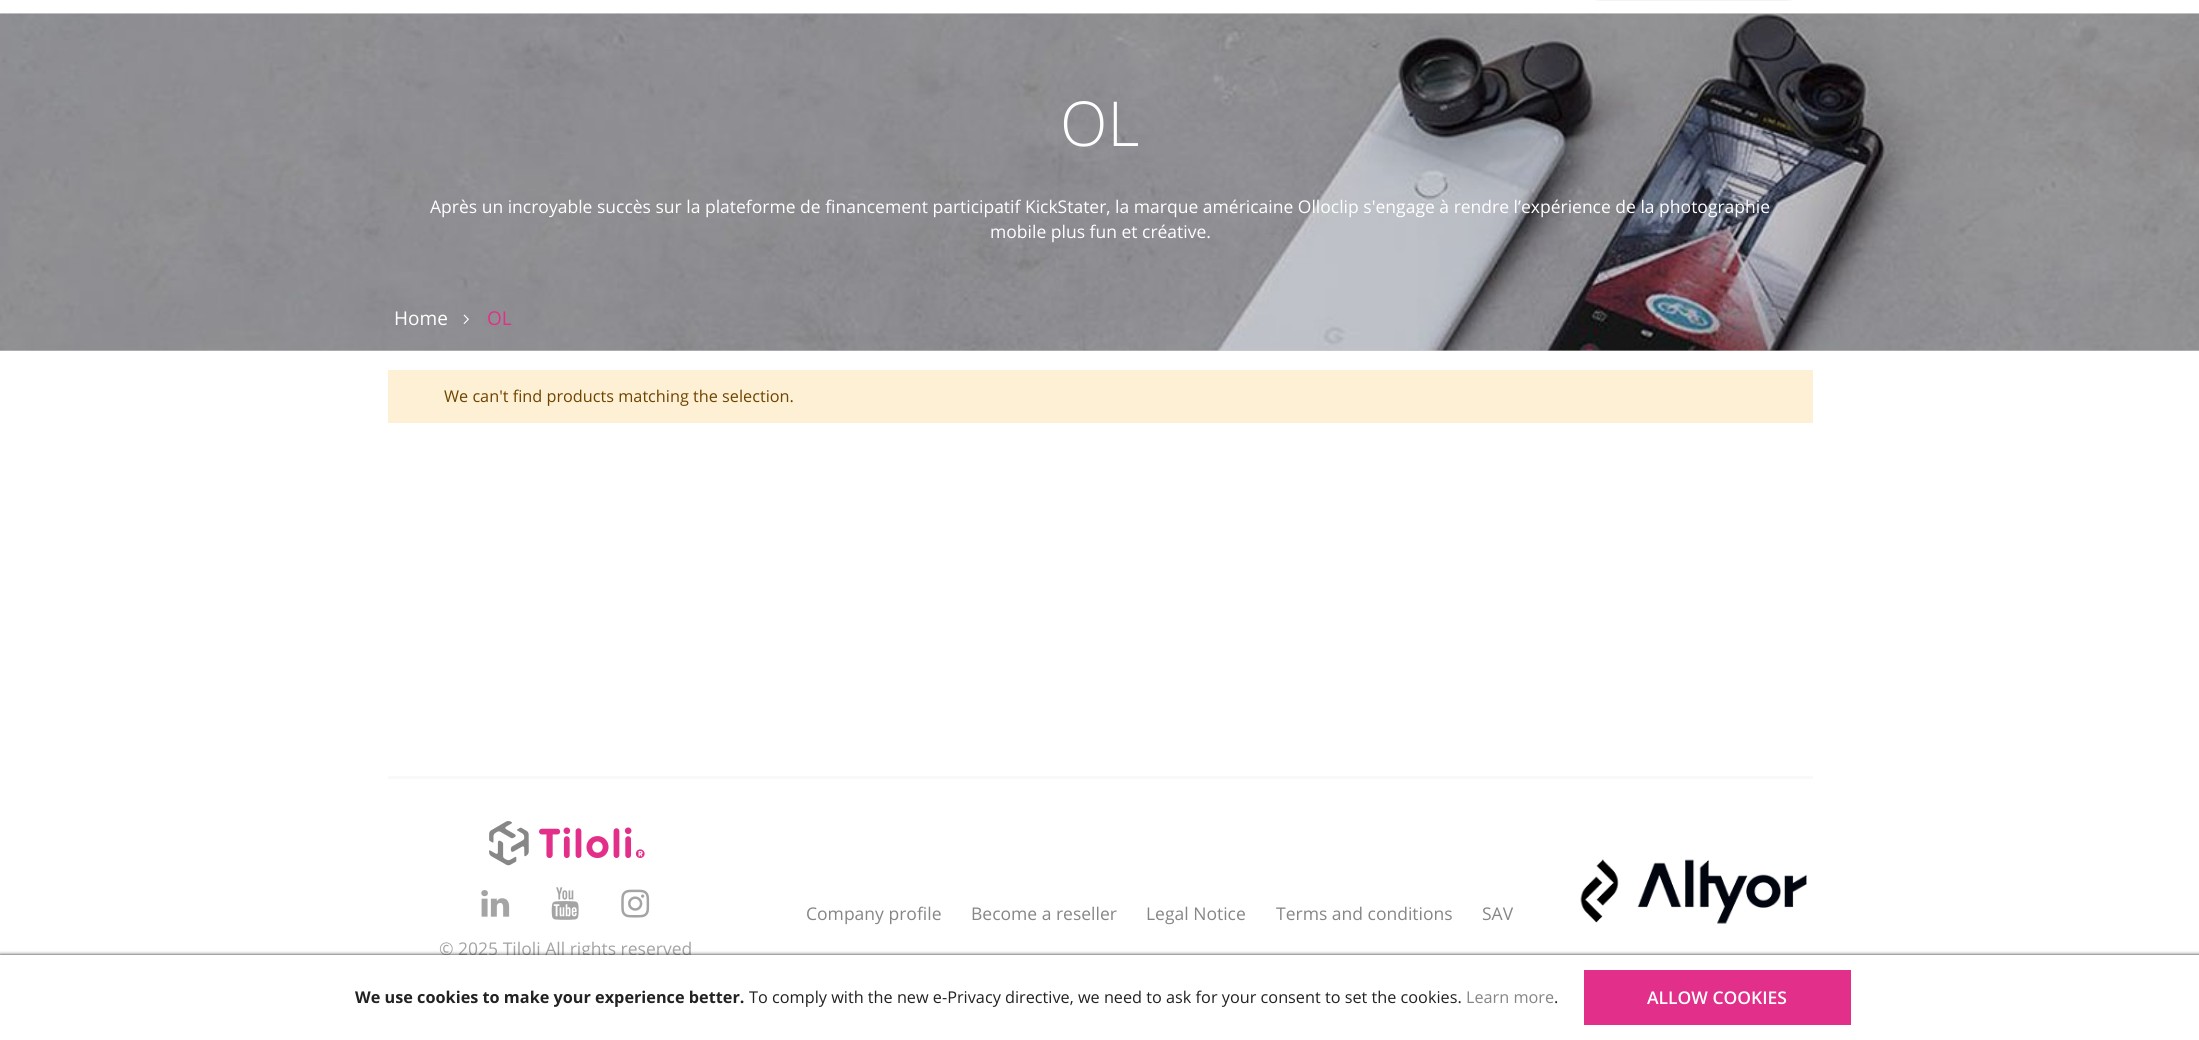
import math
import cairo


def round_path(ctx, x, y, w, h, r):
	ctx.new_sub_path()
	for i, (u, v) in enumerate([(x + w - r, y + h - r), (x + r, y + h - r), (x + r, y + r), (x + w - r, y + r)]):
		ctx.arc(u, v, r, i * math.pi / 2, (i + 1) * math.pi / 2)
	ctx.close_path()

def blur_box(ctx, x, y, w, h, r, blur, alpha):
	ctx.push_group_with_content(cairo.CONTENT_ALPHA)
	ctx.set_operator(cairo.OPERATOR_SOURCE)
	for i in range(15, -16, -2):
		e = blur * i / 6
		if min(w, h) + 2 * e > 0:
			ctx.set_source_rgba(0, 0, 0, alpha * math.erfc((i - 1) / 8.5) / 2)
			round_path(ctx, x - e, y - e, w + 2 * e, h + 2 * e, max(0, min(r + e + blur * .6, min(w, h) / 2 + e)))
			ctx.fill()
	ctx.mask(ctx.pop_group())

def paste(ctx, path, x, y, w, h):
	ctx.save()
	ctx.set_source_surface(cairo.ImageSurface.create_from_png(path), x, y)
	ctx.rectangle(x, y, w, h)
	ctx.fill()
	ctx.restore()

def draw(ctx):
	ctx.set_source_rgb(1, 1, 1)
	ctx.paint()
	ctx.set_source_rgb(0.953, 0.953, 0.953)
	round_path(ctx, 1575, -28, 238, 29, 27.5)
	ctx.fill()
	ctx.set_source_rgb(0.827, 0.827, 0.827)
	ctx.rectangle(0, 350, 2199, 1)
	ctx.fill()
	paste(ctx, 'media/1.png', 0, 13, 2199, 338)
	ctx.select_font_face('Open Sans Light')
	ctx.set_font_size(62)
	ctx.set_source_rgb(1, 1, 1)
	ctx.move_to(1060, 146)
	ctx.show_text('OL')
	ctx.select_font_face('Open Sans')
	ctx.set_font_size(17.5)
	ctx.move_to(430, 213)
	ctx.show_text('Après un incroyable succès sur la plateforme de financement participatif KickStater, la marque américaine Olloclip s\'engage à rendre l’expérience de la photographie')
	ctx.move_to(990, 238)
	ctx.show_text('mobile plus fun et créative.')
	ctx.set_font_size(19)
	ctx.move_to(394, 325)
	ctx.show_text('Home')
	paste(ctx, 'media/2.png', 463, 314, 6, 10)
	ctx.set_source_rgb(0.886, 0.184, 0.537)
	ctx.move_to(487, 325)
	ctx.show_text('OL')
	ctx.set_source_rgb(0.992, 0.941, 0.835)
	ctx.rectangle(388, 370, 1425, 53)
	ctx.fill()
	ctx.set_font_size(16.25)
	ctx.set_source_rgb(0.435, 0.267, 0)
	ctx.move_to(444, 402)
	ctx.show_text('We can\'t find products matching the selection.')
	ctx.set_source_rgb(0.976, 0.976, 0.976)
	ctx.rectangle(388, 776, 1425, 3)
	ctx.fill()
	ctx.set_font_size(17.5)
	ctx.set_source_rgb(0.525, 0.525, 0.525)
	for x, y, s in [
		(806, 920, 'Company profile'),
		(971, 920, 'Become a reseller'),
		(1146, 920, 'Legal Notice'),
		(1276, 920, 'Terms and conditions'),
		(1482, 920, 'SAV'),
	]:
		ctx.move_to(x, y)
		ctx.show_text(s)
	paste(ctx, 'media/3.png', 1580, 859, 227, 65)
	paste(ctx, 'media/4.png', 489, 821, 156, 45)
	paste(ctx, 'media/5.png', 481, 890, 29, 27)
	paste(ctx, 'media/6.png', 551, 887, 28, 33)
	paste(ctx, 'media/7.png', 621, 889, 29, 29)
	ctx.set_source_rgb(0.643, 0.643, 0.643)
	ctx.move_to(439, 955)
	ctx.show_text('© 2025 Tiloli All rights reserved')
	ctx.set_source_rgb(0.133, 0.133, 0.133)
	blur_box(ctx, 0, 955, 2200, 85, 0, 2, 1)
	ctx.set_source_rgb(1, 1, 1)
	ctx.rectangle(0, 955, 2199, 85)
	ctx.fill()
	ctx.select_font_face('Open Sans', cairo.FONT_SLANT_NORMAL, cairo.FONT_WEIGHT_BOLD)
	ctx.set_font_size(16.25)
	ctx.set_source_rgb(0.133, 0.133, 0.133)
	ctx.move_to(355, 1003)
	ctx.show_text('We use cookies to make your experience better.')
	ctx.select_font_face('Open Sans')
	ctx.move_to(749, 1003)
	ctx.show_text('To comply with the new e-Privacy directive, we need to ask for your consent to set the cookies.')
	ctx.set_source_rgb(0.525, 0.525, 0.525)
	ctx.move_to(1466, 1003)
	ctx.show_text('Learn more')
	ctx.set_source_rgb(0.133, 0.133, 0.133)
	ctx.move_to(1554, 1003)
	ctx.show_text('.')
	ctx.set_source_rgb(0.886, 0.184, 0.537)
	ctx.rectangle(1584, 970, 267, 55)
	ctx.fill()
	ctx.select_font_face('Open Sans SemiBold')
	ctx.set_font_size(17.5)
	ctx.set_source_rgb(1, 1, 1)
	ctx.move_to(1647, 1004)
	ctx.show_text('ALLOW COOKIES')


surface = cairo.ImageSurface(cairo.FORMAT_RGB24, 2199, 1040)
ctx = cairo.Context(surface)
options = cairo.FontOptions()
options.set_hint_metrics(cairo.HINT_METRICS_OFF)
options.set_hint_style(cairo.HINT_STYLE_NONE)
ctx.set_font_options(options)
ctx.set_miter_limit(4)
draw(ctx)
surface.write_to_png('image.png')
